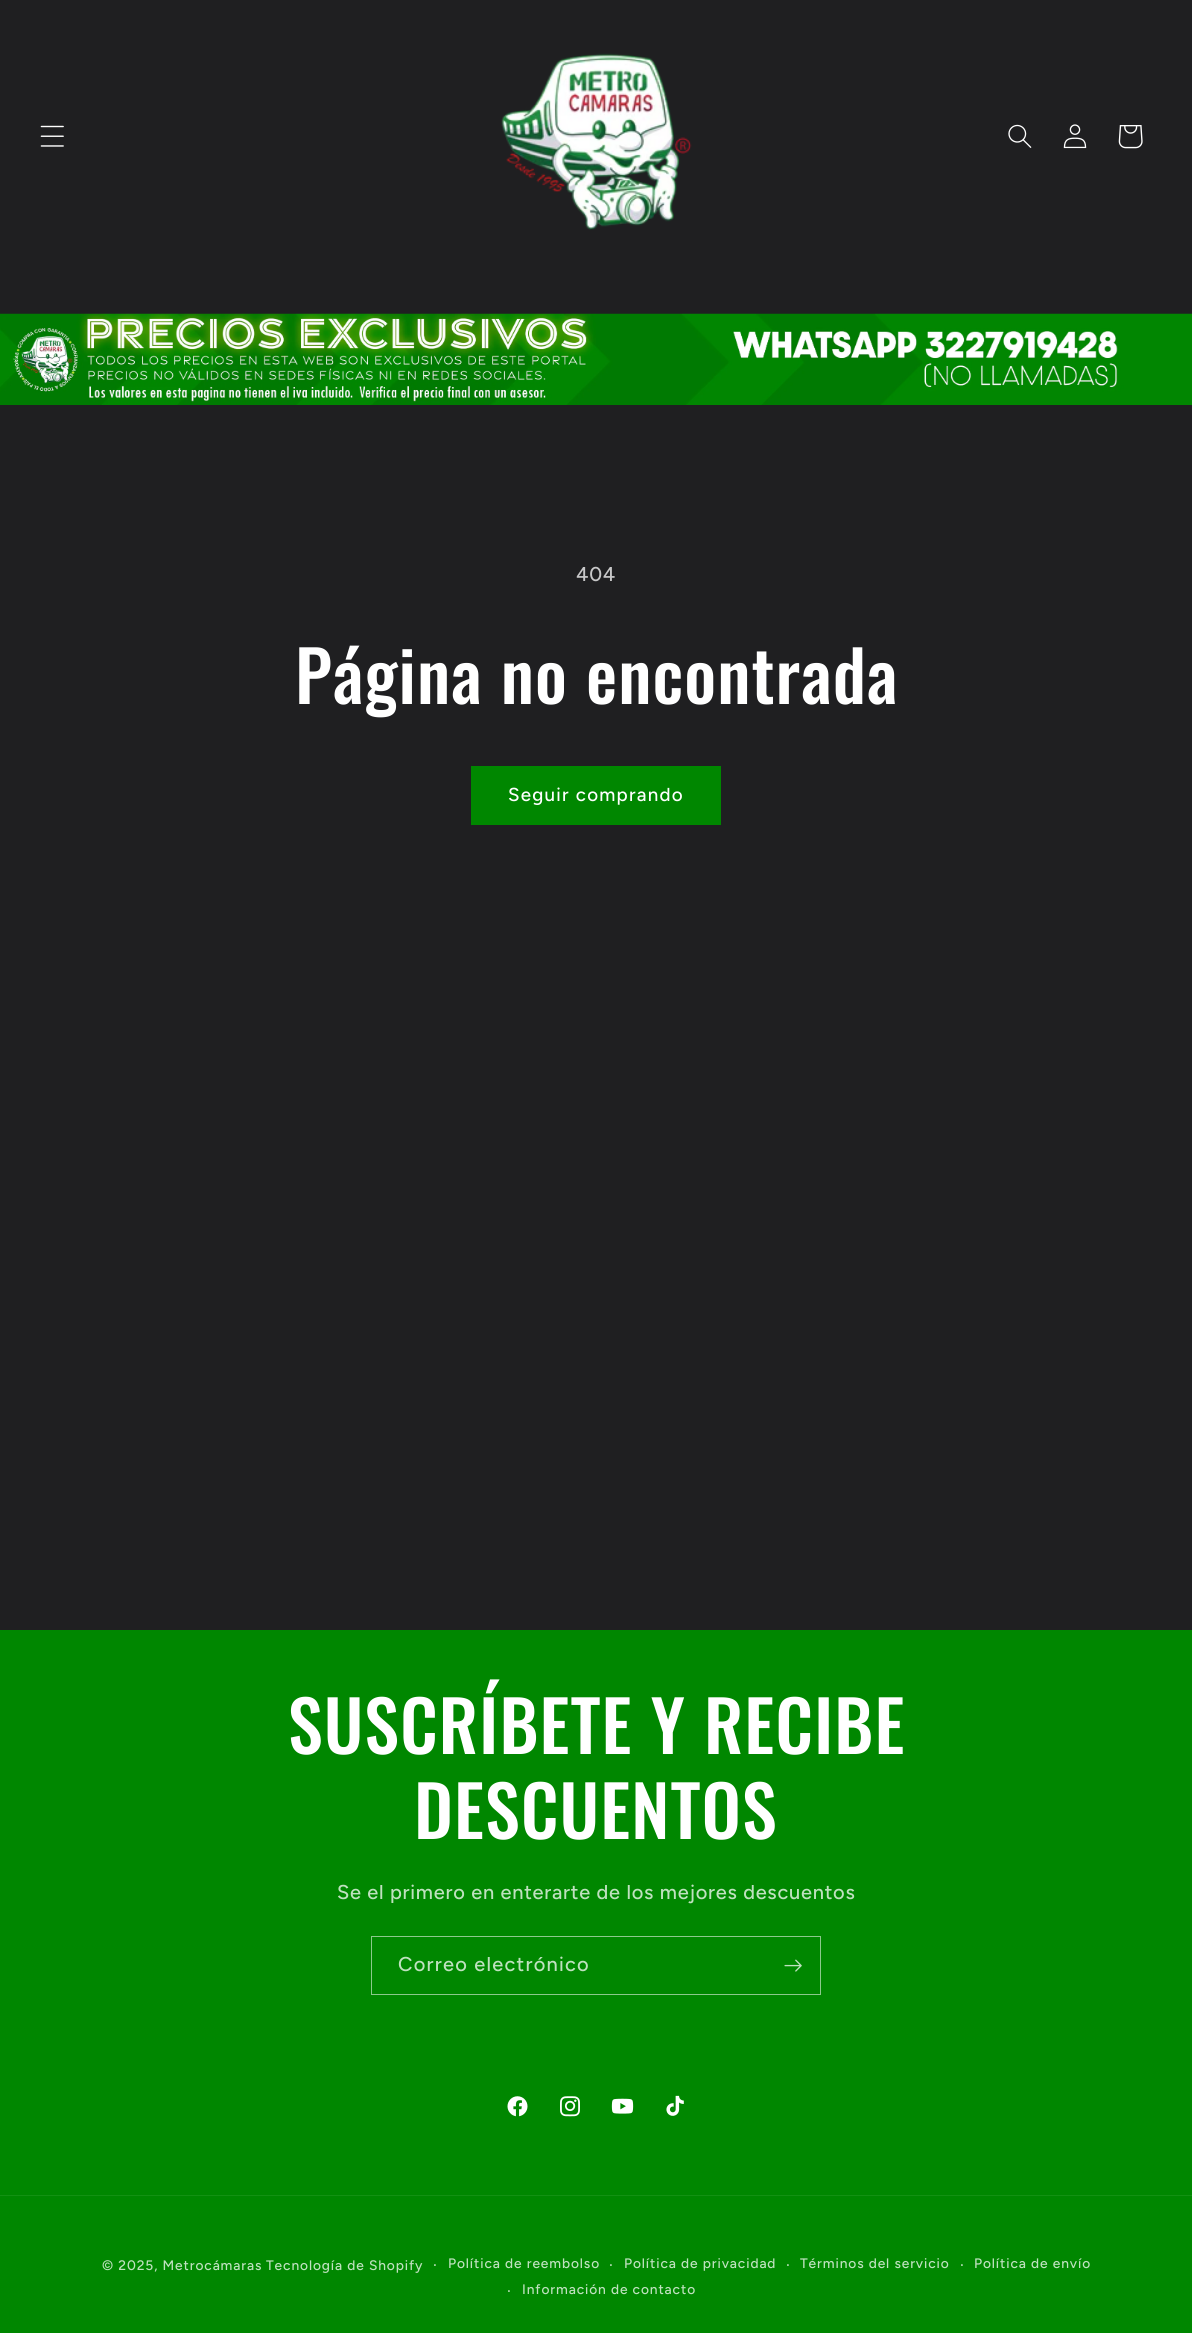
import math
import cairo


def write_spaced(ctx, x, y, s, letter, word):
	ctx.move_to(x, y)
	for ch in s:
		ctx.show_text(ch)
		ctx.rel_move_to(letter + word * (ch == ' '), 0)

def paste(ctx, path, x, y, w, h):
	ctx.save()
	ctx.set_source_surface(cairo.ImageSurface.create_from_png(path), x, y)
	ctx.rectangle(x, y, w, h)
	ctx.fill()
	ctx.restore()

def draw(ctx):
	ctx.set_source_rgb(0.122, 0.122, 0.129)
	ctx.paint()
	paste(ctx, 'media/1.png', 40, 125, 24, 22)
	paste(ctx, 'media/2.png', 501, 53, 191, 177)
	paste(ctx, 'media/3.png', 1008, 124, 24, 24)
	paste(ctx, 'media/4.png', 1063, 124, 24, 25)
	paste(ctx, 'media/5.png', 1118, 125, 25, 24)
	paste(ctx, 'media/6.png', 0, 313, 1192, 92)
	ctx.select_font_face('Figtree Medium')
	ctx.set_font_size(20)
	ctx.set_source_rgb(0.78, 0.78, 0.784)
	write_spaced(ctx, 576, 581, '404', 0.75, 0)
	ctx.select_font_face('Oswald Medium')
	ctx.set_font_size(70)
	ctx.set_source_rgb(1, 1, 1)
	write_spaced(ctx, 295, 704, 'Página no encontrada', 1.05, 0)
	ctx.set_source_rgb(0, 0.529, 0)
	ctx.rectangle(471, 766, 250, 59)
	ctx.fill()
	ctx.select_font_face('Figtree Medium')
	ctx.set_font_size(18.75)
	ctx.set_source_rgb(1, 1, 1)
	write_spaced(ctx, 508, 801, 'Seguir comprando', 1.25, 0)
	ctx.set_source_rgb(0, 0.529, 0)
	ctx.rectangle(0, 1630, 1192, 703)
	ctx.fill()
	ctx.select_font_face('Oswald Medium')
	ctx.set_font_size(70)
	ctx.set_source_rgb(1, 1, 1)
	write_spaced(ctx, 288, 1754, 'SUSCRÍBETE Y RECIBE', 1.05, 0)
	write_spaced(ctx, 414, 1839, 'DESCUENTOS', 1.05, 0)
	ctx.select_font_face('Figtree Medium')
	ctx.set_font_size(20)
	ctx.set_source_rgb(0.749, 0.882, 0.749)
	write_spaced(ctx, 337, 1899, 'Se el primero en enterarte de los mejores descuentos', 0.75, 0)
	ctx.rectangle(371.5, 1936.5, 449, 58)
	ctx.set_source_rgb(0.549, 0.788, 0.549)
	ctx.set_line_width(1)
	ctx.stroke()
	ctx.set_source_rgb(0.749, 0.882, 0.749)
	write_spaced(ctx, 398, 1971, 'Correo electrónico', 1.25, 0)
	paste(ctx, 'media/7.png', 784, 1959, 18, 13)
	paste(ctx, 'media/8.png', 507, 2096, 21, 21)
	paste(ctx, 'media/9.png', 560, 2096, 20, 21)
	paste(ctx, 'media/10.png', 611, 2098, 23, 16)
	paste(ctx, 'media/11.png', 666, 2095, 18, 21)
	ctx.set_source_rgb(0.078, 0.569, 0.078)
	ctx.rectangle(0, 2195, 1192, 1)
	ctx.fill()
	ctx.set_font_size(13.75)
	ctx.set_source_rgb(0.749, 0.882, 0.749)
	write_spaced(ctx, 102, 2270, '© 2025, Metrocámaras', 0.9, 0)
	write_spaced(ctx, 266, 2270, 'Tecnología de Shopify', 0.9, 0)
	ctx.set_font_size(15)
	write_spaced(ctx, 433, 2270, '·', 0.9, 0)
	ctx.set_font_size(13.75)
	write_spaced(ctx, 448, 2268, 'Política de reembolso', 0.9, 0)
	ctx.set_font_size(15)
	write_spaced(ctx, 609, 2270, '·', 0.9, 0)
	ctx.set_font_size(13.75)
	write_spaced(ctx, 624, 2268, 'Política de privacidad', 0.9, 0)
	ctx.set_font_size(15)
	write_spaced(ctx, 786, 2270, '·', 0.9, 0)
	ctx.set_font_size(13.75)
	write_spaced(ctx, 800, 2268, 'Términos del servicio', 0.9, 0)
	ctx.set_font_size(15)
	write_spaced(ctx, 960, 2270, '·', 0.9, 0)
	ctx.set_font_size(13.75)
	write_spaced(ctx, 974, 2268, 'Política de envío', 0.9, 0)
	ctx.set_font_size(15)
	write_spaced(ctx, 507, 2296, '·', 0.9, 0)
	ctx.set_font_size(13.75)
	write_spaced(ctx, 522, 2294, 'Información de contacto', 0.9, 0)


surface = cairo.ImageSurface(cairo.FORMAT_RGB24, 1192, 2333)
ctx = cairo.Context(surface)
options = cairo.FontOptions()
options.set_hint_metrics(cairo.HINT_METRICS_OFF)
options.set_hint_style(cairo.HINT_STYLE_NONE)
ctx.set_font_options(options)
ctx.set_miter_limit(4)
draw(ctx)
surface.write_to_png('image.png')
